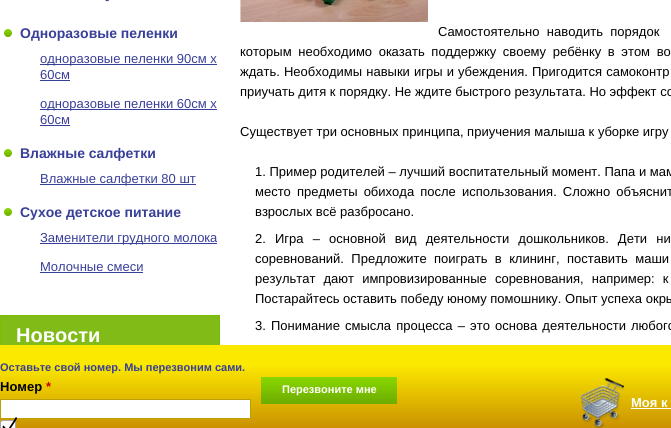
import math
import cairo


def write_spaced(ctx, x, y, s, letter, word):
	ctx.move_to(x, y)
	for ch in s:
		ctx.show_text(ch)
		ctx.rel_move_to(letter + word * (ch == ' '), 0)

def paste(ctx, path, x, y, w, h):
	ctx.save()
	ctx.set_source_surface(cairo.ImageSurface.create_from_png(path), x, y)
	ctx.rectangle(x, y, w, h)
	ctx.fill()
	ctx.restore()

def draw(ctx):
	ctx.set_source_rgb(1, 1, 1)
	ctx.paint()
	ctx.select_font_face('Liberation Sans')
	ctx.set_font_size(13)
	ctx.set_source_rgb(0.22, 0.247, 0.6)
	ctx.move_to(105, 4)
	ctx.show_text('-')
	paste(ctx, 'media/1.png', 4, 29, 8, 8)
	ctx.select_font_face('Liberation Sans', cairo.FONT_SLANT_NORMAL, cairo.FONT_WEIGHT_BOLD)
	ctx.set_font_size(14)
	ctx.move_to(20, 38)
	ctx.show_text('Одноразовые пеленки')
	ctx.rectangle(40, 64, 177, 1)
	ctx.fill()
	ctx.select_font_face('Liberation Sans')
	ctx.set_font_size(13)
	ctx.move_to(40, 63)
	ctx.show_text('одноразовые пеленки 90см x')
	ctx.move_to(40, 79)
	ctx.show_text('60см')
	ctx.rectangle(40, 80, 30, 1)
	ctx.fill()
	ctx.rectangle(40, 109, 177, 1)
	ctx.fill()
	ctx.move_to(40, 108)
	ctx.show_text('одноразовые пеленки 60см x')
	ctx.move_to(40, 124)
	ctx.show_text('60см')
	ctx.rectangle(40, 125, 30, 1)
	ctx.fill()
	paste(ctx, 'media/1.png', 4, 149, 8, 8)
	ctx.select_font_face('Liberation Sans', cairo.FONT_SLANT_NORMAL, cairo.FONT_WEIGHT_BOLD)
	ctx.set_font_size(14)
	ctx.move_to(20, 158)
	ctx.show_text('Влажные салфетки')
	ctx.rectangle(40, 184, 156, 1)
	ctx.fill()
	ctx.select_font_face('Liberation Sans')
	ctx.set_font_size(13)
	ctx.move_to(40, 183)
	ctx.show_text('Влажные салфетки 80 шт')
	paste(ctx, 'media/1.png', 4, 208, 8, 8)
	ctx.select_font_face('Liberation Sans', cairo.FONT_SLANT_NORMAL, cairo.FONT_WEIGHT_BOLD)
	ctx.set_font_size(14)
	ctx.move_to(20, 217)
	ctx.show_text('Сухое детское питание')
	ctx.rectangle(40, 243, 177, 1)
	ctx.fill()
	ctx.select_font_face('Liberation Sans')
	ctx.set_font_size(13)
	ctx.move_to(40, 242)
	ctx.show_text('Заменители грудного молока')
	ctx.move_to(40, 271)
	ctx.show_text('Молочные смеси')
	ctx.rectangle(40, 272, 103, 1)
	ctx.fill()
	ctx.set_source_rgb(0.502, 0.733, 0.094)
	ctx.rectangle(1, 316, 218, 29)
	ctx.fill()
	ctx.rectangle(0.5, 315.5, 219, 40)
	ctx.set_source_rgb(0.475, 0.745, 0.004)
	ctx.set_line_width(1)
	ctx.stroke()
	ctx.select_font_face('Liberation Sans', cairo.FONT_SLANT_NORMAL, cairo.FONT_WEIGHT_BOLD)
	ctx.set_font_size(20)
	ctx.set_source_rgb(1, 1, 1)
	ctx.move_to(16, 342)
	ctx.show_text('Новости')
	paste(ctx, 'media/2.png', 240, 0, 188, 22)
	ctx.select_font_face('Liberation Sans')
	ctx.set_font_size(13)
	ctx.set_source_rgb(0, 0, 0)
	write_spaced(ctx, 438, 36, 'Самостоятельно наводить порядок', 0, 3.75)
	write_spaced(ctx, 240, 56, 'которым необходимо оказать поддержку своему ребёнку в этом во', 0, 3)
	write_spaced(ctx, 240, 76, 'ждать. Необходимы навыки игры и убеждения. Пригодится самоконтр', 0, 0.5)
	for x, y, s in [
		(240, 96, 'приучать дитя к порядку. Не ждите быстрого результата. Но эффект со'),
		(240, 136, 'Существует три основных принципа, приучения малыша к уборке игру'),
		(255, 176, '1. Пример родителей – лучший воспитательный момент. Папа и мам'),
	]:
		ctx.move_to(x, y)
		ctx.show_text(s)
	write_spaced(ctx, 255, 196, 'место предметы обихода после использования. Сложно объяснит', 0, 2.5)
	ctx.move_to(255, 216)
	ctx.show_text('взрослых всё разбросано.')
	ctx.move_to(255, 243)
	ctx.show_text('2.')
	write_spaced(ctx, 275, 243, 'Игра – основной вид деятельности дошкольников. Дети ни', 0, 5.5)
	write_spaced(ctx, 255, 263, 'соревнований. Предложите поиграть в клининг, поставить маши', 0, 3.75)
	write_spaced(ctx, 255, 283, 'результат дают импровизированные соревнования, например: к', 0, 4.5)
	ctx.move_to(255, 303)
	ctx.show_text('Постарайтесь оставить победу юному помошнику. Опыт успеха окры')
	ctx.move_to(255, 330)
	ctx.show_text('3.')
	write_spaced(ctx, 271, 330, 'Понимание смысла процесса – это основа деятельности любого', 0, 1.5)
	gradient = cairo.LinearGradient(336, 345, 336, 428)
	gradient.add_color_stop_rgba(0.01, 0.988, 0.914, 0, 1)
	gradient.add_color_stop_rgba(0.23, 0.988, 0.914, 0, 1)
	gradient.add_color_stop_rgba(1, 0.792, 0.569, 0, 1)
	ctx.set_source(gradient)
	ctx.rectangle(0, 345, 671, 83)
	ctx.fill()
	ctx.select_font_face('Liberation Sans', cairo.FONT_SLANT_NORMAL, cairo.FONT_WEIGHT_BOLD)
	ctx.set_font_size(11)
	ctx.set_source_rgb(0.22, 0.247, 0.6)
	ctx.move_to(0, 371)
	ctx.show_text('Оставьте свой номер. Мы перезвоним сами.')
	ctx.set_font_size(13)
	ctx.set_source_rgb(0, 0, 0)
	ctx.move_to(0, 391)
	ctx.show_text('Номер')
	ctx.set_source_rgb(0.8, 0, 0)
	ctx.move_to(46, 391)
	ctx.show_text('*')
	ctx.set_source_rgb(1, 1, 1)
	ctx.rectangle(0.5, 399.5, 250, 19)
	ctx.fill_preserve()
	ctx.set_source_rgb(0.729, 0.627, 0)
	ctx.stroke()
	paste(ctx, 'media/3.png', 261, 377, 136, 27)
	ctx.set_font_size(11)
	ctx.set_source_rgb(1, 1, 1)
	ctx.move_to(282, 393)
	ctx.show_text('Перезвоните мне')
	paste(ctx, 'media/4.png', 0, 417, 17, 11)
	paste(ctx, 'media/5.png', 581, 378, 43, 50)
	ctx.set_font_size(13)
	ctx.move_to(631, 407)
	ctx.show_text('Моя к')
	ctx.rectangle(631, 408, 40, 1)
	ctx.fill()


surface = cairo.ImageSurface(cairo.FORMAT_RGB24, 671, 428)
ctx = cairo.Context(surface)
options = cairo.FontOptions()
options.set_hint_metrics(cairo.HINT_METRICS_OFF)
options.set_hint_style(cairo.HINT_STYLE_NONE)
ctx.set_font_options(options)
ctx.set_miter_limit(4)
draw(ctx)
surface.write_to_png('image.png')
